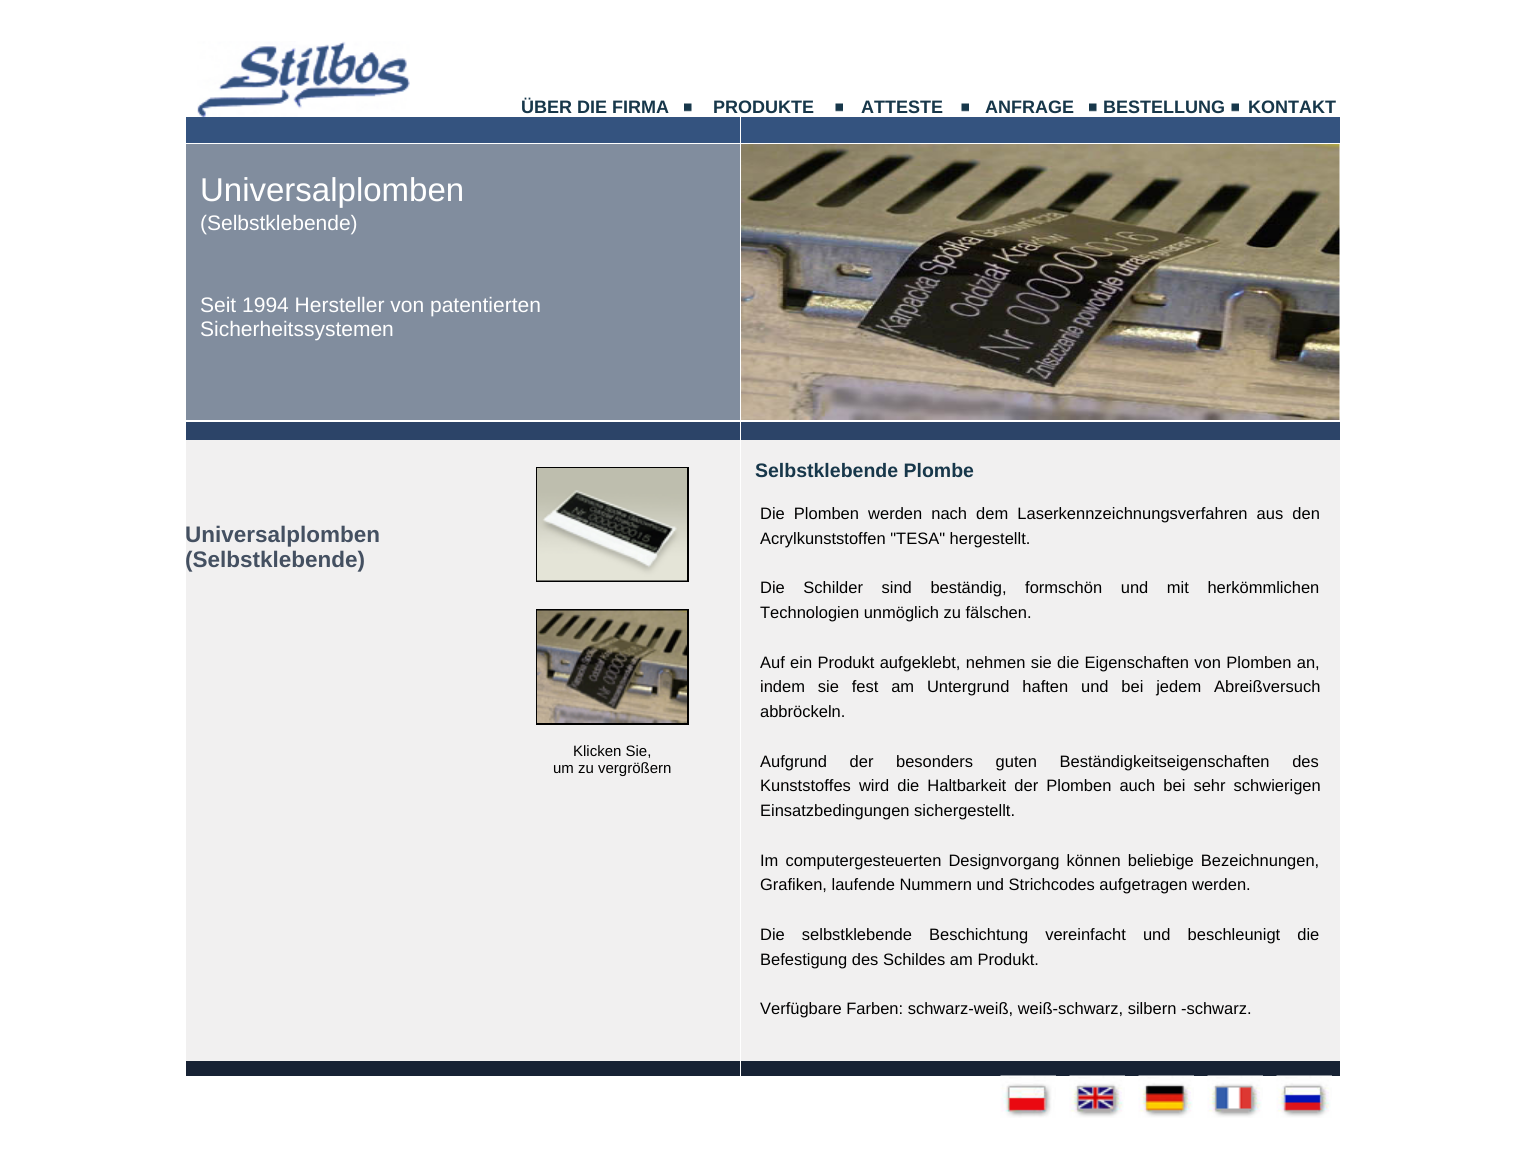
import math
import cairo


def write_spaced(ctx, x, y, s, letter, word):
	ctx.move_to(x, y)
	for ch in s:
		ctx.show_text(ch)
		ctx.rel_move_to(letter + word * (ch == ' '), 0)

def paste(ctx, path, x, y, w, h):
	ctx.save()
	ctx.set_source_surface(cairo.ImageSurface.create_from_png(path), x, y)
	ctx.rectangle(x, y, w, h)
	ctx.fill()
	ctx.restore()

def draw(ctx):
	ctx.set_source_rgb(1, 1, 1)
	ctx.paint()
	paste(ctx, 'media/1.png', 197, 41, 213, 76)
	ctx.select_font_face('Liberation Sans', cairo.FONT_SLANT_NORMAL, cairo.FONT_WEIGHT_BOLD)
	ctx.set_font_size(18)
	ctx.set_source_rgb(0.09, 0.216, 0.29)
	ctx.move_to(521, 113)
	ctx.show_text('ÜBER DIE FIRMA')
	paste(ctx, 'media/2.png', 684, 103, 8, 9)
	ctx.move_to(713, 113)
	ctx.show_text('PRODUKTE')
	paste(ctx, 'media/3.png', 835, 103, 8, 9)
	ctx.move_to(861, 113)
	ctx.show_text('ATTESTE')
	paste(ctx, 'media/3.png', 961, 103, 8, 9)
	ctx.move_to(985, 113)
	ctx.show_text('ANFRAGE')
	paste(ctx, 'media/2.png', 1089, 103, 8, 9)
	ctx.move_to(1103, 113)
	ctx.show_text('BESTELLUNG')
	paste(ctx, 'media/3.png', 1231, 103, 8, 9)
	ctx.move_to(1248, 113)
	ctx.show_text('KONTAKT')
	ctx.set_source_rgb(0.204, 0.325, 0.498)
	ctx.rectangle(186, 117, 554, 26)
	ctx.rectangle(741, 117, 599, 26)
	ctx.fill()
	ctx.set_source_rgb(0.506, 0.553, 0.62)
	ctx.rectangle(186, 144, 554, 276)
	ctx.fill()
	ctx.select_font_face('Liberation Sans')
	ctx.set_font_size(33)
	ctx.set_source_rgb(1, 1, 1)
	ctx.move_to(200, 201)
	ctx.show_text('Universalplomben')
	ctx.set_font_size(21)
	for x, y, s in [
		(200, 230, '(Selbstklebende)'),
		(200, 312, 'Seit 1994 Hersteller von patentierten'),
		(200, 336, 'Sicherheitssystemen'),
	]:
		ctx.move_to(x, y)
		ctx.show_text(s)
	paste(ctx, 'media/4.png', 741, 144, 599, 276)
	ctx.set_source_rgb(0.173, 0.267, 0.408)
	ctx.rectangle(186, 422, 554, 18)
	ctx.rectangle(741, 422, 599, 18)
	ctx.fill()
	ctx.set_source_rgb(0.945, 0.941, 0.941)
	ctx.rectangle(186, 440, 554, 621)
	ctx.fill()
	ctx.select_font_face('Liberation Sans', cairo.FONT_SLANT_NORMAL, cairo.FONT_WEIGHT_BOLD)
	ctx.set_font_size(22.5)
	ctx.set_source_rgb(0.267, 0.314, 0.38)
	ctx.move_to(185, 542)
	ctx.show_text('Universalplomben')
	ctx.move_to(185, 567)
	ctx.show_text('(Selbstklebende)')
	ctx.rectangle(537, 468, 151, 113)
	ctx.set_source_rgb(0, 0, 0)
	ctx.stroke()
	paste(ctx, 'media/5.png', 537, 468, 150, 113)
	ctx.rectangle(537, 610, 151, 114)
	ctx.stroke()
	paste(ctx, 'media/6.png', 537, 610, 150, 113)
	ctx.select_font_face('Liberation Sans')
	ctx.set_font_size(15)
	ctx.move_to(573, 756)
	ctx.show_text('Klicken Sie,')
	ctx.move_to(553, 773)
	ctx.show_text('um zu vergrößern')
	ctx.set_source_rgb(0.945, 0.941, 0.941)
	ctx.rectangle(741, 440, 599, 621)
	ctx.fill()
	ctx.select_font_face('Liberation Sans', cairo.FONT_SLANT_NORMAL, cairo.FONT_WEIGHT_BOLD)
	ctx.set_font_size(19.5)
	ctx.set_source_rgb(0.09, 0.216, 0.29)
	ctx.move_to(755, 477)
	ctx.show_text('Selbstklebende Plombe')
	ctx.select_font_face('Liberation Sans')
	ctx.set_font_size(16.5)
	ctx.set_source_rgb(0, 0, 0)
	write_spaced(ctx, 760, 519, 'Die Plomben werden nach dem Laserkennzeichnungsverfahren aus den', 0, 4.5)
	ctx.move_to(760, 544)
	ctx.show_text('Acrylkunststoffen "TESA" hergestellt.')
	write_spaced(ctx, 760, 593, 'Die Schilder sind beständig, formschön und mit herkömmlichen', 0, 14)
	ctx.move_to(760, 618)
	ctx.show_text('Technologien unmöglich zu fälschen.')
	write_spaced(ctx, 760, 668, 'Auf ein Produkt aufgeklebt, nehmen sie die Eigenschaften von Plomben an,', 0, 0.75)
	write_spaced(ctx, 760, 692, 'indem sie fest am Untergrund haften und bei jedem Abreißversuch', 0, 8.25)
	ctx.move_to(760, 717)
	ctx.show_text('abbröckeln.')
	write_spaced(ctx, 760, 767, 'Aufgrund der besonders guten Beständigkeitseigenschaften des', 0, 18)
	write_spaced(ctx, 760, 791, 'Kunststoffes wird die Haltbarkeit der Plomben auch bei sehr schwierigen', 0, 3.5)
	ctx.move_to(760, 816)
	ctx.show_text('Einsatzbedingungen sichergestellt.')
	write_spaced(ctx, 760, 866, 'Im computergesteuerten Designvorgang können beliebige Bezeichnungen,', 0, 2.5)
	ctx.move_to(760, 890)
	ctx.show_text('Grafiken, laufende Nummern und Strichcodes aufgetragen werden.')
	write_spaced(ctx, 760, 940, 'Die selbstklebende Beschichtung vereinfacht und beschleunigt die', 0, 12.5)
	ctx.move_to(760, 965)
	ctx.show_text('Befestigung des Schildes am Produkt.')
	ctx.move_to(760, 1014)
	ctx.show_text('Verfügbare Farben: schwarz-weiß, weiß-schwarz, silbern -schwarz.')
	ctx.set_source_rgb(0.09, 0.133, 0.204)
	ctx.rectangle(186, 1061, 554, 15)
	ctx.fill()
	ctx.rectangle(741, 1061, 599, 15)
	ctx.fill()
	paste(ctx, 'media/7.png', 1000, 1075, 56, 43)
	paste(ctx, 'media/8.png', 1069, 1075, 56, 43)
	paste(ctx, 'media/9.png', 1138, 1075, 56, 43)
	paste(ctx, 'media/10.png', 1207, 1075, 56, 43)
	paste(ctx, 'media/11.png', 1276, 1075, 56, 43)


surface = cairo.ImageSurface(cairo.FORMAT_RGB24, 1524, 1175)
ctx = cairo.Context(surface)
options = cairo.FontOptions()
options.set_hint_metrics(cairo.HINT_METRICS_OFF)
options.set_hint_style(cairo.HINT_STYLE_NONE)
ctx.set_font_options(options)
ctx.set_miter_limit(4)
draw(ctx)
surface.write_to_png('image.png')
